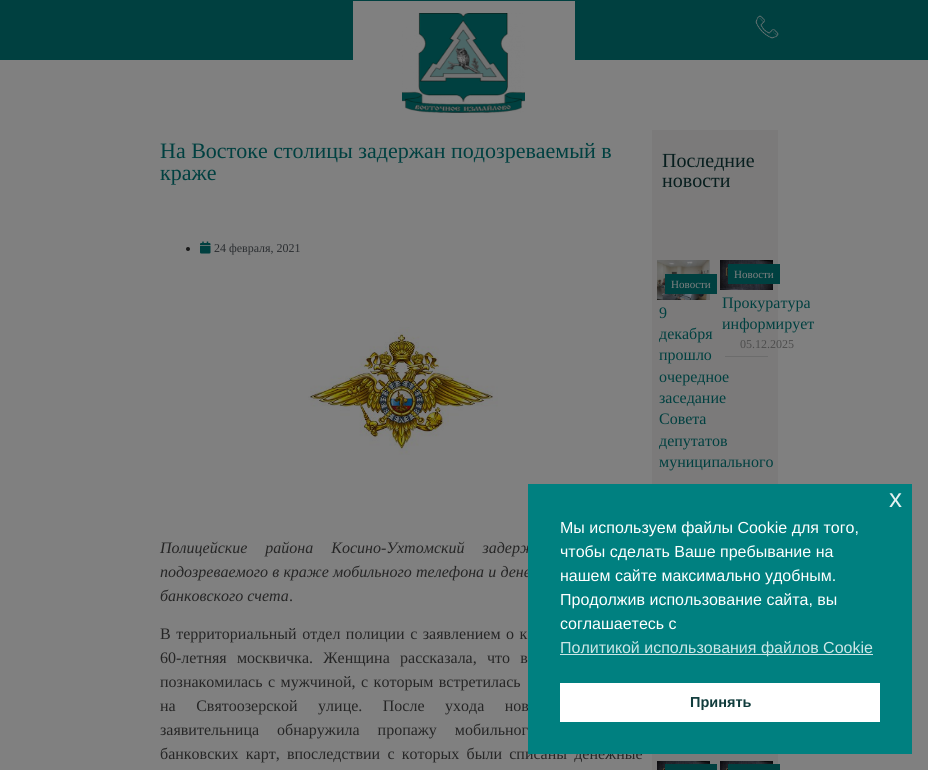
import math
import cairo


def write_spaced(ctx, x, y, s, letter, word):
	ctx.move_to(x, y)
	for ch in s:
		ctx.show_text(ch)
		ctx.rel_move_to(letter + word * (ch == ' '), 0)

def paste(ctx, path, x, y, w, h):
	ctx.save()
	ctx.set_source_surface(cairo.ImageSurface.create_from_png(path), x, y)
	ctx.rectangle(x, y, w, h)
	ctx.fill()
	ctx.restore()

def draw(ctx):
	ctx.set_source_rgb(0.502, 0.502, 0.502)
	ctx.paint()
	ctx.set_source_rgb(0, 0.251, 0.251)
	ctx.rectangle(0, 0, 928, 60)
	ctx.fill()
	ctx.set_source_rgb(0.502, 0.502, 0.502)
	ctx.rectangle(353, 1, 222, 59)
	ctx.fill()
	paste(ctx, 'media/1.png', 402, 13, 123, 100)
	paste(ctx, 'media/2.png', 755, 15, 24, 24)
	ctx.select_font_face('Liberation Serif')
	ctx.set_font_size(22)
	ctx.set_source_rgb(0, 0.251, 0.251)
	ctx.move_to(160, 158)
	ctx.show_text('На Востоке столицы задержан подозреваемый в')
	ctx.move_to(160, 180)
	ctx.show_text('краже')
	ctx.set_source_rgb(0.102, 0.102, 0.102)
	ctx.new_path()
	ctx.arc(188, 249, 2, 0, 2 * math.pi)
	ctx.fill()
	paste(ctx, 'media/3.png', 200, 241, 11, 13)
	ctx.set_font_size(12)
	ctx.set_source_rgb(0.165, 0.176, 0.188)
	ctx.move_to(214, 252)
	ctx.show_text('24 февраля, 2021')
	paste(ctx, 'media/4.png', 308, 327, 190, 128)
	ctx.select_font_face('Liberation Serif', cairo.FONT_SLANT_ITALIC)
	ctx.set_font_size(16)
	ctx.set_source_rgb(0.145, 0.145, 0.145)
	write_spaced(ctx, 160, 553, 'Полицейские района Косино-Ухтомский задерж', 0, 14)
	write_spaced(ctx, 160, 577, 'подозреваемого в краже мобильного телефона и дене', 0, 0.25)
	ctx.move_to(160, 601)
	ctx.show_text('банковского счета')
	ctx.select_font_face('Liberation Serif')
	ctx.move_to(289, 601)
	ctx.show_text('.')
	write_spaced(ctx, 160, 639, 'В территориальный отдел полиции с заявлением о к', 0, 1.5)
	write_spaced(ctx, 160, 663, '60-летняя москвичка. Женщина рассказала, что в', 0, 6.25)
	write_spaced(ctx, 160, 687, 'познакомилась с мужчиной, с которым встретилась', 0, 1.5)
	write_spaced(ctx, 160, 711, 'на Святоозерской улице. После ухода нов', 0, 16.5)
	write_spaced(ctx, 160, 735, 'заявительница обнаружила пропажу мобильног', 0, 14)
	write_spaced(ctx, 160, 759, 'банковских карт, впоследствии с которых были списаны денежные', 0, 3.25)
	ctx.set_source_rgb(0.482, 0.478, 0.478)
	ctx.rectangle(652, 130, 126, 640)
	ctx.fill()
	ctx.set_font_size(20)
	ctx.set_source_rgb(0.031, 0.118, 0.118)
	ctx.move_to(662, 167)
	ctx.show_text('Последние')
	ctx.move_to(662, 187)
	ctx.show_text('новости')
	ctx.set_source_rgb(0.424, 0.424, 0.424)
	ctx.rectangle(725, 356, 43, 1)
	ctx.fill()
	paste(ctx, 'media/5.png', 720, 260, 53, 30)
	ctx.set_source_rgb(0, 0.251, 0.251)
	ctx.rectangle(728, 264, 52, 20)
	ctx.fill()
	ctx.set_font_size(11)
	ctx.set_source_rgb(0.502, 0.502, 0.502)
	ctx.move_to(734, 278)
	ctx.show_text('Новости')
	ctx.set_font_size(16)
	ctx.set_source_rgb(0, 0.251, 0.251)
	ctx.move_to(722, 308)
	ctx.show_text('Прокуратура')
	ctx.move_to(722, 329)
	ctx.show_text('информирует')
	ctx.set_font_size(12)
	ctx.set_source_rgb(0.302, 0.302, 0.302)
	ctx.move_to(740, 348)
	ctx.show_text('05.12.2025')
	paste(ctx, 'media/6.png', 657, 260, 53, 40)
	ctx.set_source_rgb(0, 0.251, 0.251)
	ctx.rectangle(665, 274, 52, 20)
	ctx.fill()
	ctx.set_font_size(11)
	ctx.set_source_rgb(0.502, 0.502, 0.502)
	ctx.move_to(671, 288)
	ctx.show_text('Новости')
	ctx.set_font_size(16)
	ctx.set_source_rgb(0, 0.251, 0.251)
	for x, y, s in [
		(659, 318, '9'),
		(659, 339, 'декабря'),
		(659, 360, 'прошло'),
		(659, 382, 'очередное'),
		(659, 403, 'заседание'),
		(659, 424, 'Совета'),
		(659, 446, 'депутатов'),
		(659, 467, 'муниципального'),
	]:
		ctx.move_to(x, y)
		ctx.show_text(s)
	paste(ctx, 'media/7.png', 657, 761, 53, 9)
	ctx.rectangle(665, 764, 52, 6)
	ctx.fill()
	paste(ctx, 'media/7.png', 720, 761, 53, 9)
	ctx.rectangle(728, 764, 52, 6)
	ctx.fill()
	ctx.set_source_rgb(0, 0.502, 0.502)
	ctx.rectangle(528, 484, 384, 270)
	ctx.fill()
	ctx.select_font_face('Liberation Sans')
	ctx.set_font_size(26)
	ctx.set_source_rgb(0.902, 0.949, 0.949)
	ctx.move_to(889, 507)
	ctx.show_text('x')
	ctx.set_font_size(16)
	ctx.set_source_rgb(1, 1, 1)
	for x, y, s in [
		(560, 533, 'Мы используем файлы Cookie для того,'),
		(560, 557, 'чтобы сделать Ваше пребывание на'),
		(560, 581, 'нашем сайте максимально удобным.'),
		(560, 605, 'Продолжив использование сайта, вы'),
		(560, 629, 'соглашаетесь с'),
	]:
		ctx.move_to(x, y)
		ctx.show_text(s)
	ctx.set_source_rgb(0.8, 0.902, 0.902)
	ctx.rectangle(560, 654, 313, 1)
	ctx.fill()
	ctx.move_to(560, 653)
	ctx.show_text('Политикой использования файлов Cookie')
	ctx.set_source_rgb(1, 1, 1)
	ctx.rectangle(560, 683, 320, 39)
	ctx.fill()
	ctx.select_font_face('Liberation Sans', cairo.FONT_SLANT_NORMAL, cairo.FONT_WEIGHT_BOLD)
	ctx.set_font_size(14.5)
	ctx.set_source_rgb(0.063, 0.235, 0.235)
	ctx.move_to(690, 707)
	ctx.show_text('Принять')


surface = cairo.ImageSurface(cairo.FORMAT_RGB24, 928, 770)
ctx = cairo.Context(surface)
options = cairo.FontOptions()
options.set_hint_metrics(cairo.HINT_METRICS_OFF)
options.set_hint_style(cairo.HINT_STYLE_NONE)
ctx.set_font_options(options)
ctx.set_miter_limit(4)
draw(ctx)
surface.write_to_png('image.png')
